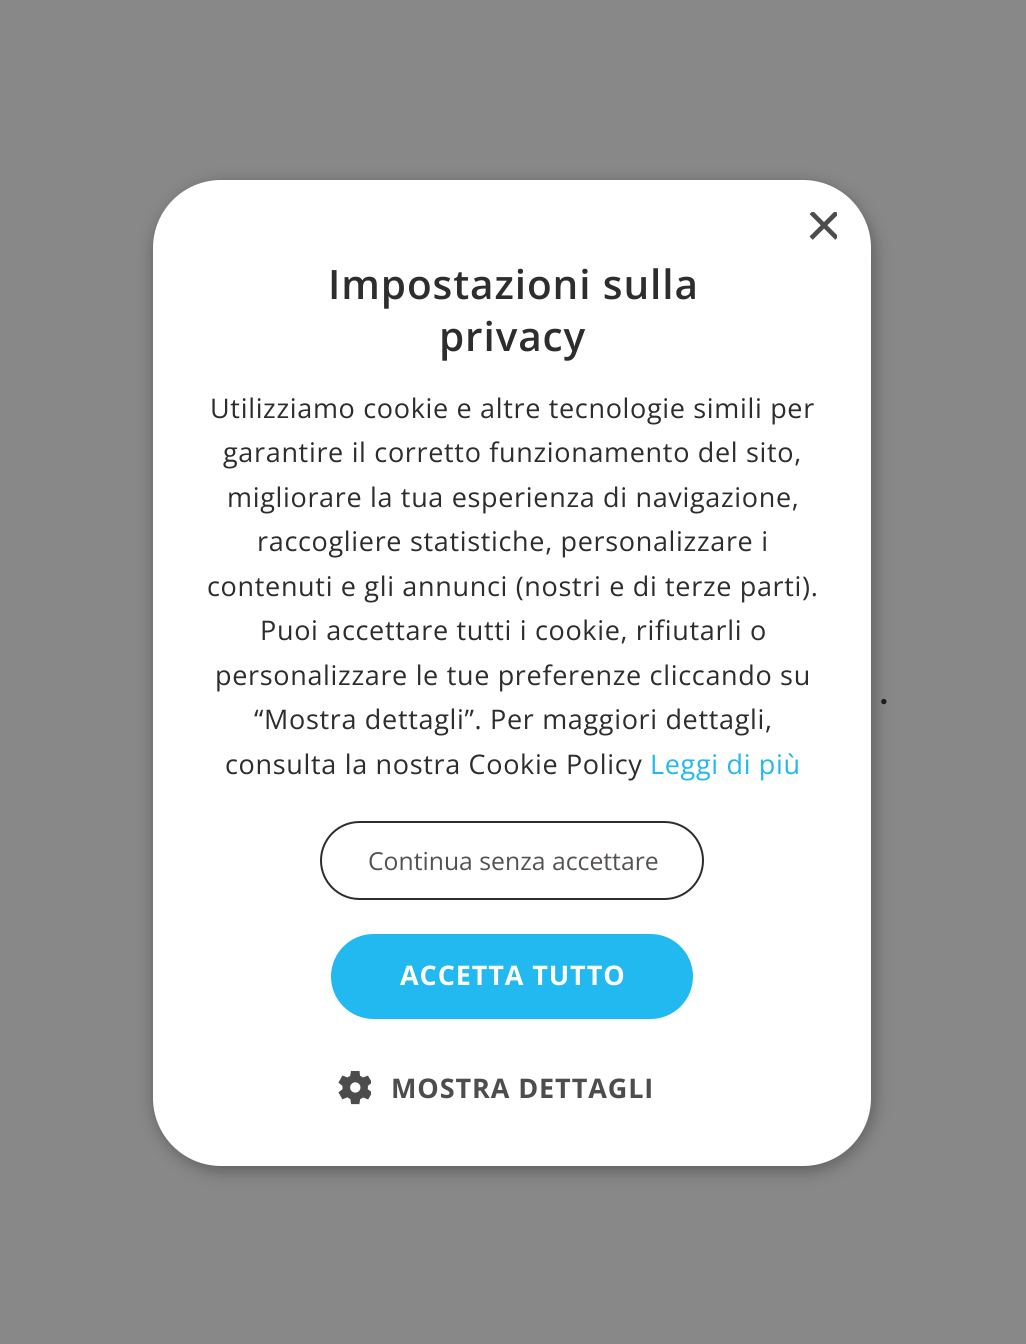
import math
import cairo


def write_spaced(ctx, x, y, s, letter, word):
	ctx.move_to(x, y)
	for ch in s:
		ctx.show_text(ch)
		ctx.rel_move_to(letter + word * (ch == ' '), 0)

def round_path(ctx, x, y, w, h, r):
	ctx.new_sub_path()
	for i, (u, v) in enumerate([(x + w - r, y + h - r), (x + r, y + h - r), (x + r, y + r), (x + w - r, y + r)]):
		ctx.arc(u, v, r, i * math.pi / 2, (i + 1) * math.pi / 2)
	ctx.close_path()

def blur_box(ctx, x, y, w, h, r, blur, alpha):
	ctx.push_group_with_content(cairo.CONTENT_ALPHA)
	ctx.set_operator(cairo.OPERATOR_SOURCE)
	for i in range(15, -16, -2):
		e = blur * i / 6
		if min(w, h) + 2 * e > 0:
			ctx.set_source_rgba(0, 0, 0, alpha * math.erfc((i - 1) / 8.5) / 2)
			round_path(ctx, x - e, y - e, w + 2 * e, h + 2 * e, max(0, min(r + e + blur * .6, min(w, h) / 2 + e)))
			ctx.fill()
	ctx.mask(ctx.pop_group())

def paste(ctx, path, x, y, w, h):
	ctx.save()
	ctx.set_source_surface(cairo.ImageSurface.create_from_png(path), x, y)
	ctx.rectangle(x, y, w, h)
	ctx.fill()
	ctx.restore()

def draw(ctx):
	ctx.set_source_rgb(0.533, 0.533, 0.533)
	ctx.paint()
	ctx.set_source_rgb(0, 0, 0)
	blur_box(ctx, 155, 185, 718, 985, 68, 9, 0.35)
	ctx.set_source_rgb(1, 1, 1)
	round_path(ctx, 153, 180, 718, 986, 68)
	ctx.fill()
	ctx.save()
	ctx.rectangle(803, 212, 34, 33)
	ctx.clip()
	ctx.select_font_face('Liberation Sans')
	ctx.set_font_size(65)
	ctx.set_source_rgb(0.302, 0.302, 0.302)
	ctx.move_to(805, 247)
	ctx.show_text('×')
	ctx.restore()
	ctx.select_font_face('Open Sans SemiBold')
	ctx.set_font_size(40.5)
	ctx.set_source_rgb(0.176, 0.176, 0.176)
	write_spaced(ctx, 328, 299, 'Impostazioni sulla', 0.9, 0)
	write_spaced(ctx, 439, 351, 'privacy', 0.9, 0)
	ctx.select_font_face('Open Sans')
	ctx.set_font_size(27)
	for x, y, s in [
		(210, 418, 'Utilizziamo cookie e altre tecnologie simili per'),
		(223, 462, 'garantire il corretto funzionamento del sito,'),
		(227, 507, 'migliorare la tua esperienza di navigazione,'),
		(257, 551, 'raccogliere statistiche, personalizzare i'),
		(207, 596, 'contenuti e gli annunci (nostri e di terze parti).'),
		(260, 640, 'Puoi accettare tutti i cookie, rifiutarli o'),
		(215, 685, 'personalizzare le tue preferenze cliccando su'),
		(254, 729, '“Mostra dettagli”. Per maggiori dettagli,'),
		(225, 774, 'consulta la nostra Cookie Policy'),
	]:
		write_spaced(ctx, x, y, s, 0.67, 0)
	ctx.set_source_rgb(0.133, 0.722, 0.941)
	write_spaced(ctx, 650, 774, 'Leggi di più', 0.67, 0)
	round_path(ctx, 321, 822, 382, 77, 38.5)
	ctx.set_source_rgb(0.176, 0.176, 0.176)
	ctx.stroke()
	ctx.set_font_size(24.75)
	ctx.set_source_rgb(0.341, 0.322, 0.322)
	ctx.move_to(368, 870)
	ctx.show_text('Continua senza accettare')
	ctx.set_source_rgb(0.133, 0.722, 0.941)
	round_path(ctx, 331, 934, 362, 85, 42.5)
	ctx.fill()
	ctx.select_font_face('Open Sans', cairo.FONT_SLANT_NORMAL, cairo.FONT_WEIGHT_BOLD)
	ctx.set_font_size(27)
	ctx.set_source_rgb(1, 1, 1)
	write_spaced(ctx, 400, 985, 'ACCETTA TUTTO', 0.9, 0)
	paste(ctx, 'media/1.png', 338, 1071, 33, 34)
	ctx.set_source_rgb(0.302, 0.302, 0.302)
	write_spaced(ctx, 391, 1098, 'MOSTRA DETTAGLI', 0.9, 0)
	ctx.select_font_face('Inter')
	ctx.set_font_size(40.5)
	ctx.set_source_rgb(0.094, 0.114, 0.141)
	ctx.move_to(878, 704)
	ctx.show_text('.')


surface = cairo.ImageSurface(cairo.FORMAT_RGB24, 1026, 1344)
ctx = cairo.Context(surface)
options = cairo.FontOptions()
options.set_hint_metrics(cairo.HINT_METRICS_OFF)
options.set_hint_style(cairo.HINT_STYLE_NONE)
ctx.set_font_options(options)
ctx.set_miter_limit(4)
draw(ctx)
surface.write_to_png('image.png')
